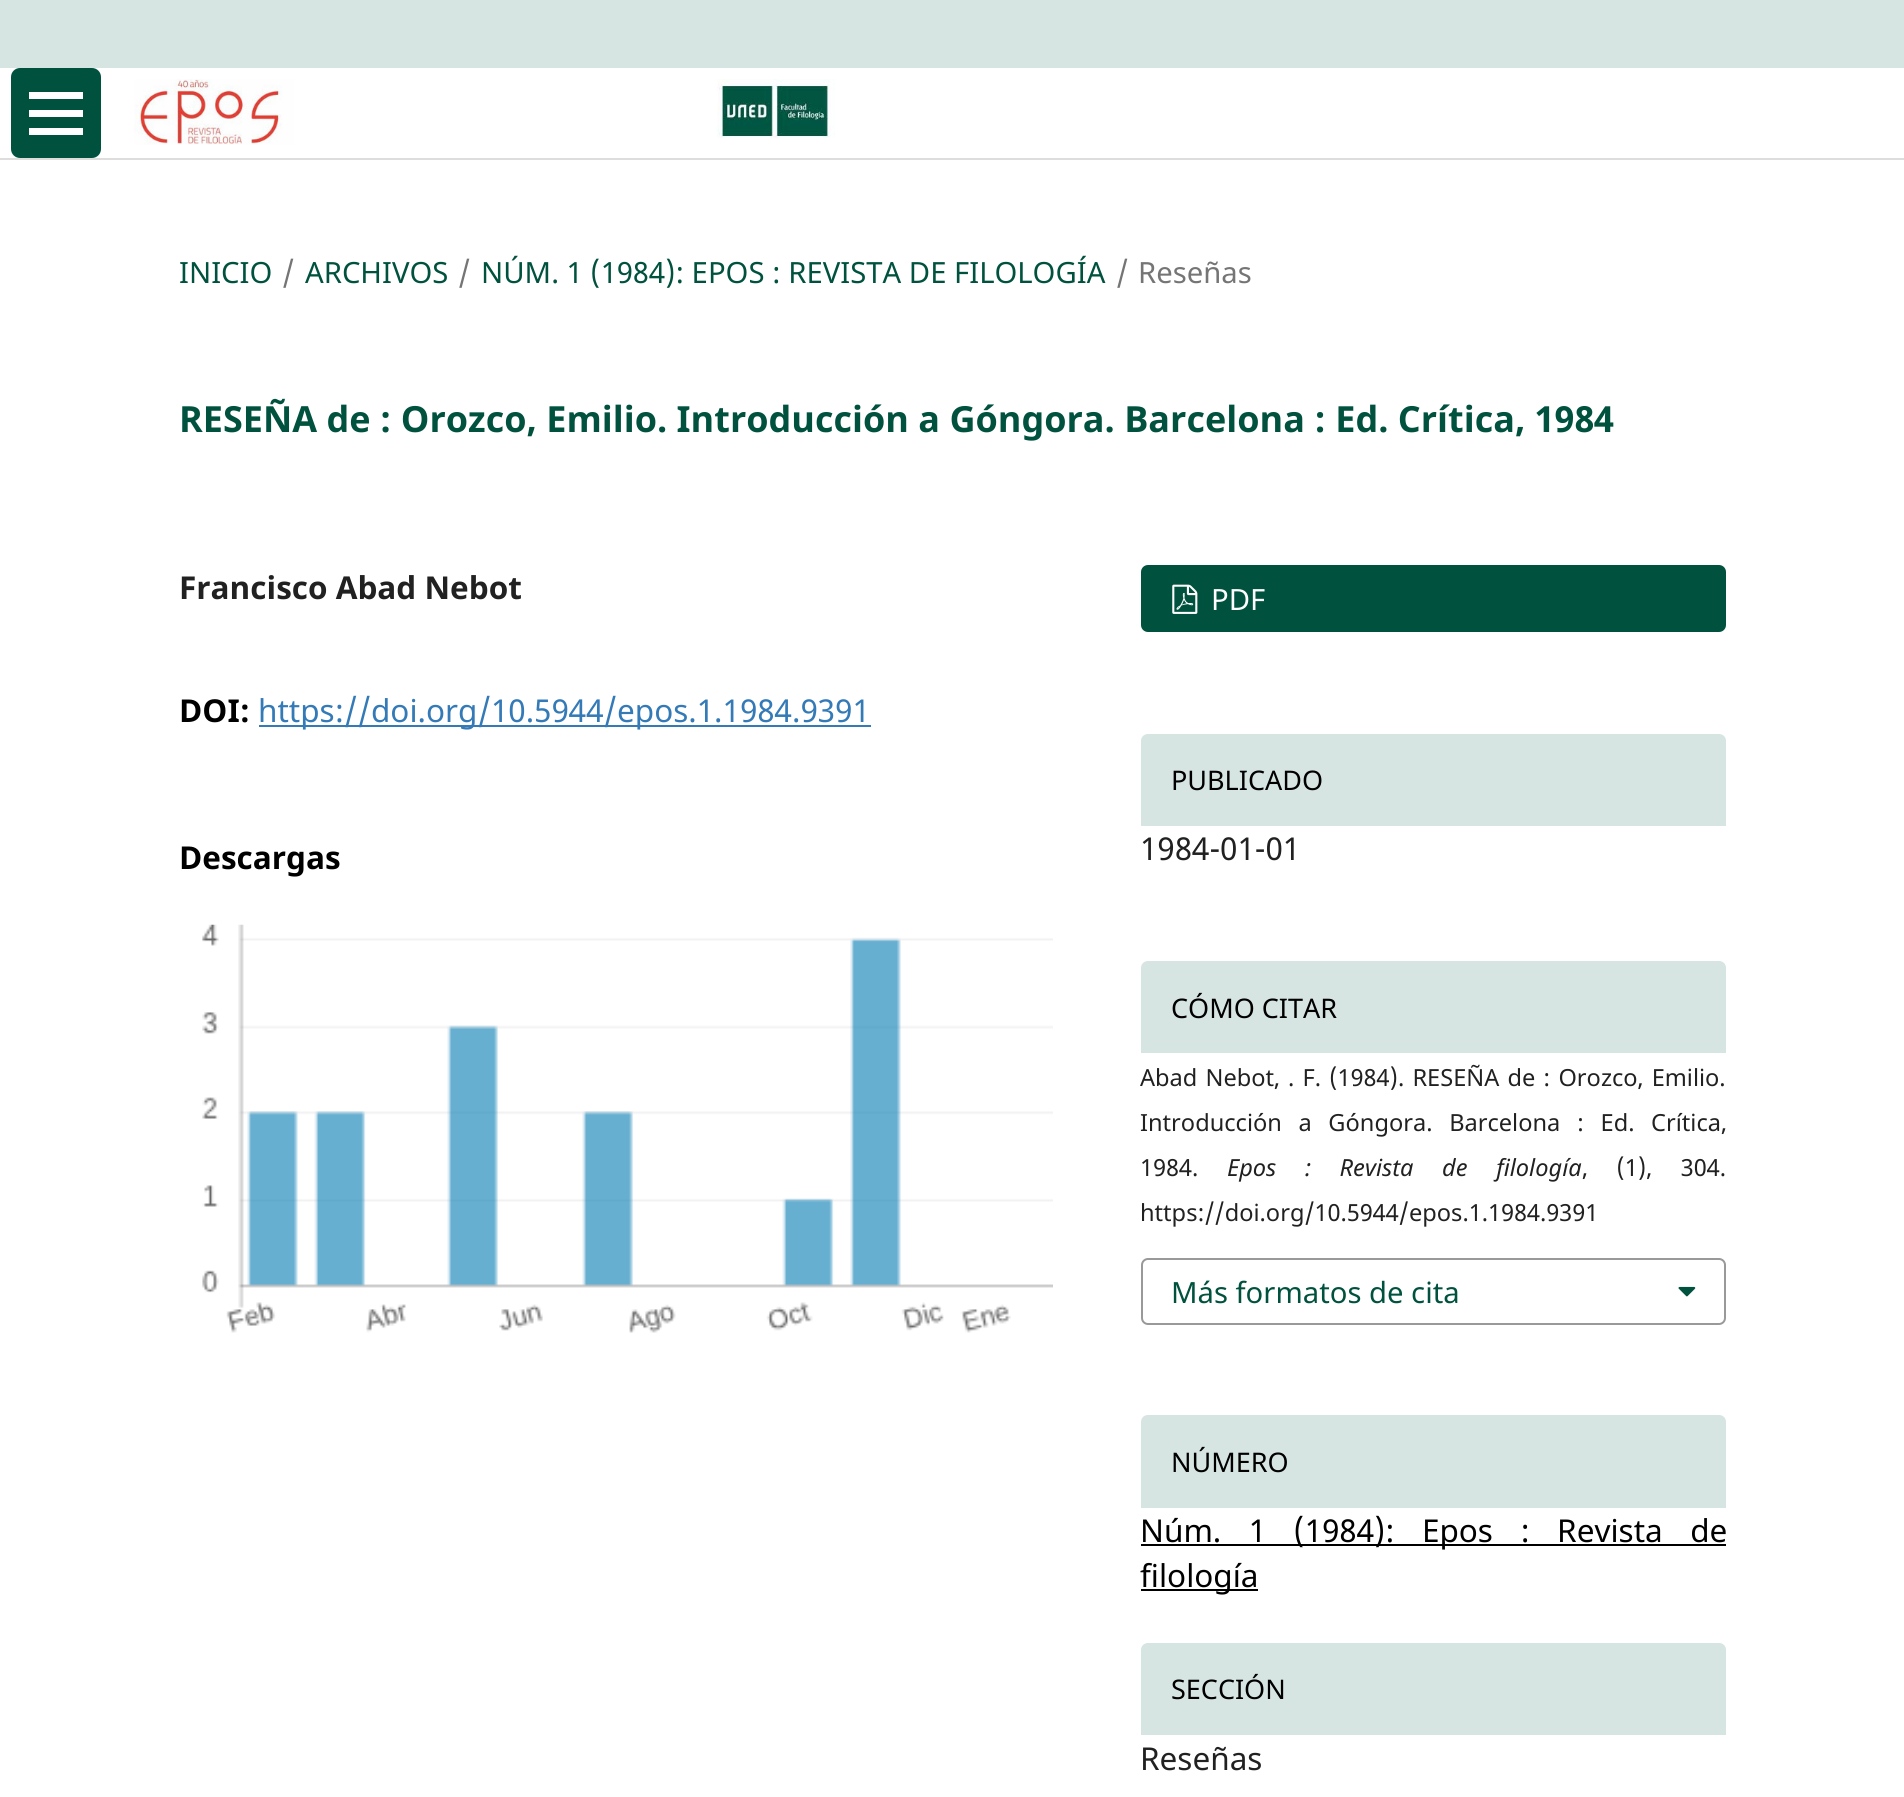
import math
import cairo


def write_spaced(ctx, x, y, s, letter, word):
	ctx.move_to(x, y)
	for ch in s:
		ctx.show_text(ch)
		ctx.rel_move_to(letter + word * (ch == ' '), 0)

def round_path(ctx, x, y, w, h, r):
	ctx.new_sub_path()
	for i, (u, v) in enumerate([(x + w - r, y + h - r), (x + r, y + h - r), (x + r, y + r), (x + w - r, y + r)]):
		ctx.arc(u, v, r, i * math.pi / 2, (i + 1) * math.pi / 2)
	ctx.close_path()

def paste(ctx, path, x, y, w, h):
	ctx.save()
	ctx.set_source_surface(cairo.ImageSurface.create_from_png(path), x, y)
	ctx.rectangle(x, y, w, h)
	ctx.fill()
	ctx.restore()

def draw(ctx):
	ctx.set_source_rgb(0.839, 0.898, 0.886)
	ctx.paint()
	ctx.set_source_rgb(1, 1, 1)
	ctx.rectangle(0, 68, 1904, 1729)
	ctx.fill()
	ctx.set_source_rgb(0.867, 0.867, 0.867)
	ctx.rectangle(0, 158, 1904, 2)
	ctx.fill()
	ctx.set_source_rgb(0, 0.322, 0.243)
	round_path(ctx, 11, 68, 90, 90, 9)
	ctx.fill()
	ctx.set_source_rgb(1, 1, 1)
	ctx.rectangle(29, 128, 54, 7)
	ctx.rectangle(29, 92, 54, 7)
	ctx.rectangle(29, 110, 54, 7)
	ctx.fill()
	paste(ctx, 'media/1.png', 134, 79, 701, 66)
	ctx.select_font_face('Noto Sans')
	ctx.set_font_size(29.25)
	ctx.set_source_rgb(0, 0.322, 0.243)
	ctx.move_to(179, 283)
	ctx.show_text('INICIO')
	ctx.set_source_rgb(0.459, 0.459, 0.459)
	ctx.move_to(282, 283)
	ctx.show_text('/')
	ctx.set_source_rgb(0, 0.322, 0.243)
	ctx.move_to(305, 283)
	ctx.show_text('ARCHIVOS')
	ctx.set_source_rgb(0.459, 0.459, 0.459)
	ctx.move_to(458, 283)
	ctx.show_text('/')
	ctx.set_source_rgb(0, 0.322, 0.243)
	ctx.move_to(481, 283)
	ctx.show_text('NÚM. 1 (1984): EPOS : REVISTA DE FILOLOGÍA')
	ctx.set_source_rgb(0.459, 0.459, 0.459)
	ctx.move_to(1116, 283)
	ctx.show_text('/')
	ctx.move_to(1138, 283)
	ctx.show_text('Reseñas')
	ctx.select_font_face('Noto Sans', cairo.FONT_SLANT_NORMAL, cairo.FONT_WEIGHT_BOLD)
	ctx.set_font_size(36)
	ctx.set_source_rgb(0, 0.322, 0.243)
	ctx.move_to(179, 432)
	ctx.show_text('RESEÑA de : Orozco, Emilio. Introducción a Góngora. Barcelona : Ed. Crítica, 1984')
	ctx.set_font_size(31.5)
	ctx.set_source_rgb(0.129, 0.129, 0.129)
	ctx.move_to(179, 599)
	ctx.show_text('Francisco Abad Nebot')
	ctx.set_source_rgb(0, 0, 0)
	ctx.move_to(179, 722)
	ctx.show_text('DOI:')
	ctx.set_source_rgb(0.2, 0.478, 0.718)
	ctx.rectangle(259, 725, 612, 2)
	ctx.fill()
	ctx.select_font_face('Noto Sans')
	ctx.move_to(258, 722)
	ctx.show_text('https://doi.org/10.5944/epos.1.1984.9391')
	ctx.select_font_face('Noto Sans', cairo.FONT_SLANT_NORMAL, cairo.FONT_WEIGHT_BOLD)
	ctx.set_source_rgb(0, 0, 0)
	ctx.move_to(179, 869)
	ctx.show_text('Descargas')
	paste(ctx, 'media/2.png', 202, 924, 851, 409)
	ctx.set_source_rgb(0, 0.322, 0.243)
	round_path(ctx, 1142, 566, 583, 65, 6)
	ctx.fill_preserve()
	ctx.stroke()
	paste(ctx, 'media/3.png', 1172, 584, 26, 30)
	ctx.select_font_face('Noto Sans')
	ctx.set_font_size(29.25)
	ctx.set_source_rgb(1, 1, 1)
	ctx.move_to(1211, 610)
	ctx.show_text('PDF')
	ctx.set_source_rgb(0.839, 0.898, 0.886)
	ctx.new_path()
	ctx.move_to(1148, 734)
	ctx.line_to(1719, 734)
	ctx.curve_to(1723, 734, 1726, 737, 1726, 741)
	ctx.line_to(1726, 826)
	ctx.line_to(1141, 826)
	ctx.line_to(1141, 741)
	ctx.curve_to(1141, 737, 1144, 734, 1148, 734)
	ctx.close_path()
	ctx.fill()
	ctx.set_font_size(27)
	ctx.set_source_rgb(0, 0, 0)
	ctx.move_to(1171, 790)
	ctx.show_text('PUBLICADO')
	ctx.set_font_size(31.5)
	ctx.set_source_rgb(0.129, 0.129, 0.129)
	ctx.move_to(1140, 860)
	ctx.show_text('1984-01-01')
	ctx.set_source_rgb(0.839, 0.898, 0.886)
	ctx.new_path()
	ctx.move_to(1148, 961)
	ctx.line_to(1719, 961)
	ctx.curve_to(1723, 961, 1726, 964, 1726, 968)
	ctx.line_to(1726, 1053)
	ctx.line_to(1141, 1053)
	ctx.line_to(1141, 968)
	ctx.curve_to(1141, 964, 1144, 961, 1148, 961)
	ctx.close_path()
	ctx.fill()
	ctx.set_font_size(27)
	ctx.set_source_rgb(0, 0, 0)
	ctx.move_to(1171, 1018)
	ctx.show_text('CÓMO CITAR')
	ctx.set_font_size(23.6)
	ctx.set_source_rgb(0.129, 0.129, 0.129)
	write_spaced(ctx, 1140, 1086, 'Abad Nebot, . F. (1984). RESEÑA de : Orozco, Emilio.', 0, 2)
	write_spaced(ctx, 1140, 1131, 'Introducción a Góngora. Barcelona : Ed. Crítica,', 0, 10.5)
	ctx.move_to(1140, 1176)
	ctx.show_text('1984.')
	ctx.select_font_face('Noto Sans', cairo.FONT_SLANT_ITALIC)
	write_spaced(ctx, 1227, 1176, 'Epos : Revista de filología', 0, 22.5)
	ctx.select_font_face('Noto Sans')
	write_spaced(ctx, 1582, 1176, ', (1), 304.', 0, 22.5)
	ctx.move_to(1140, 1221)
	ctx.show_text('https://doi.org/10.5944/epos.1.1984.9391')
	round_path(ctx, 1142, 1259, 583, 65, 6)
	ctx.set_source_rgb(0.6, 0.6, 0.6)
	ctx.stroke()
	ctx.set_font_size(29.25)
	ctx.set_source_rgb(0, 0.322, 0.243)
	ctx.move_to(1171, 1303)
	ctx.show_text('Más formatos de cita')
	paste(ctx, 'media/4.png', 1678, 1286, 18, 11)
	ctx.set_source_rgb(0.839, 0.898, 0.886)
	ctx.new_path()
	ctx.move_to(1148, 1415)
	ctx.line_to(1719, 1415)
	ctx.curve_to(1723, 1415, 1726, 1418, 1726, 1422)
	ctx.line_to(1726, 1508)
	ctx.line_to(1141, 1508)
	ctx.line_to(1141, 1422)
	ctx.curve_to(1141, 1418, 1144, 1415, 1148, 1415)
	ctx.close_path()
	ctx.fill()
	ctx.set_font_size(27)
	ctx.set_source_rgb(0, 0, 0)
	ctx.move_to(1171, 1472)
	ctx.show_text('NÚMERO')
	ctx.rectangle(1141, 1544, 585, 2)
	ctx.fill()
	ctx.set_font_size(31.5)
	write_spaced(ctx, 1140, 1542, 'Núm. 1 (1984): Epos : Revista de', 0, 19.25)
	ctx.rectangle(1141, 1589, 117, 2)
	ctx.fill()
	ctx.move_to(1140, 1587)
	ctx.show_text('filología')
	ctx.set_source_rgb(0.839, 0.898, 0.886)
	ctx.new_path()
	ctx.move_to(1148, 1643)
	ctx.line_to(1719, 1643)
	ctx.curve_to(1723, 1643, 1726, 1646, 1726, 1650)
	ctx.line_to(1726, 1735)
	ctx.line_to(1141, 1735)
	ctx.line_to(1141, 1650)
	ctx.curve_to(1141, 1646, 1144, 1643, 1148, 1643)
	ctx.close_path()
	ctx.fill()
	ctx.set_font_size(27)
	ctx.set_source_rgb(0, 0, 0)
	ctx.move_to(1171, 1699)
	ctx.show_text('SECCIÓN')
	ctx.set_font_size(31.5)
	ctx.set_source_rgb(0.129, 0.129, 0.129)
	ctx.move_to(1140, 1770)
	ctx.show_text('Reseñas')


surface = cairo.ImageSurface(cairo.FORMAT_RGB24, 1904, 1797)
ctx = cairo.Context(surface)
options = cairo.FontOptions()
options.set_hint_metrics(cairo.HINT_METRICS_OFF)
options.set_hint_style(cairo.HINT_STYLE_NONE)
ctx.set_font_options(options)
ctx.set_miter_limit(4)
draw(ctx)
surface.write_to_png('image.png')
